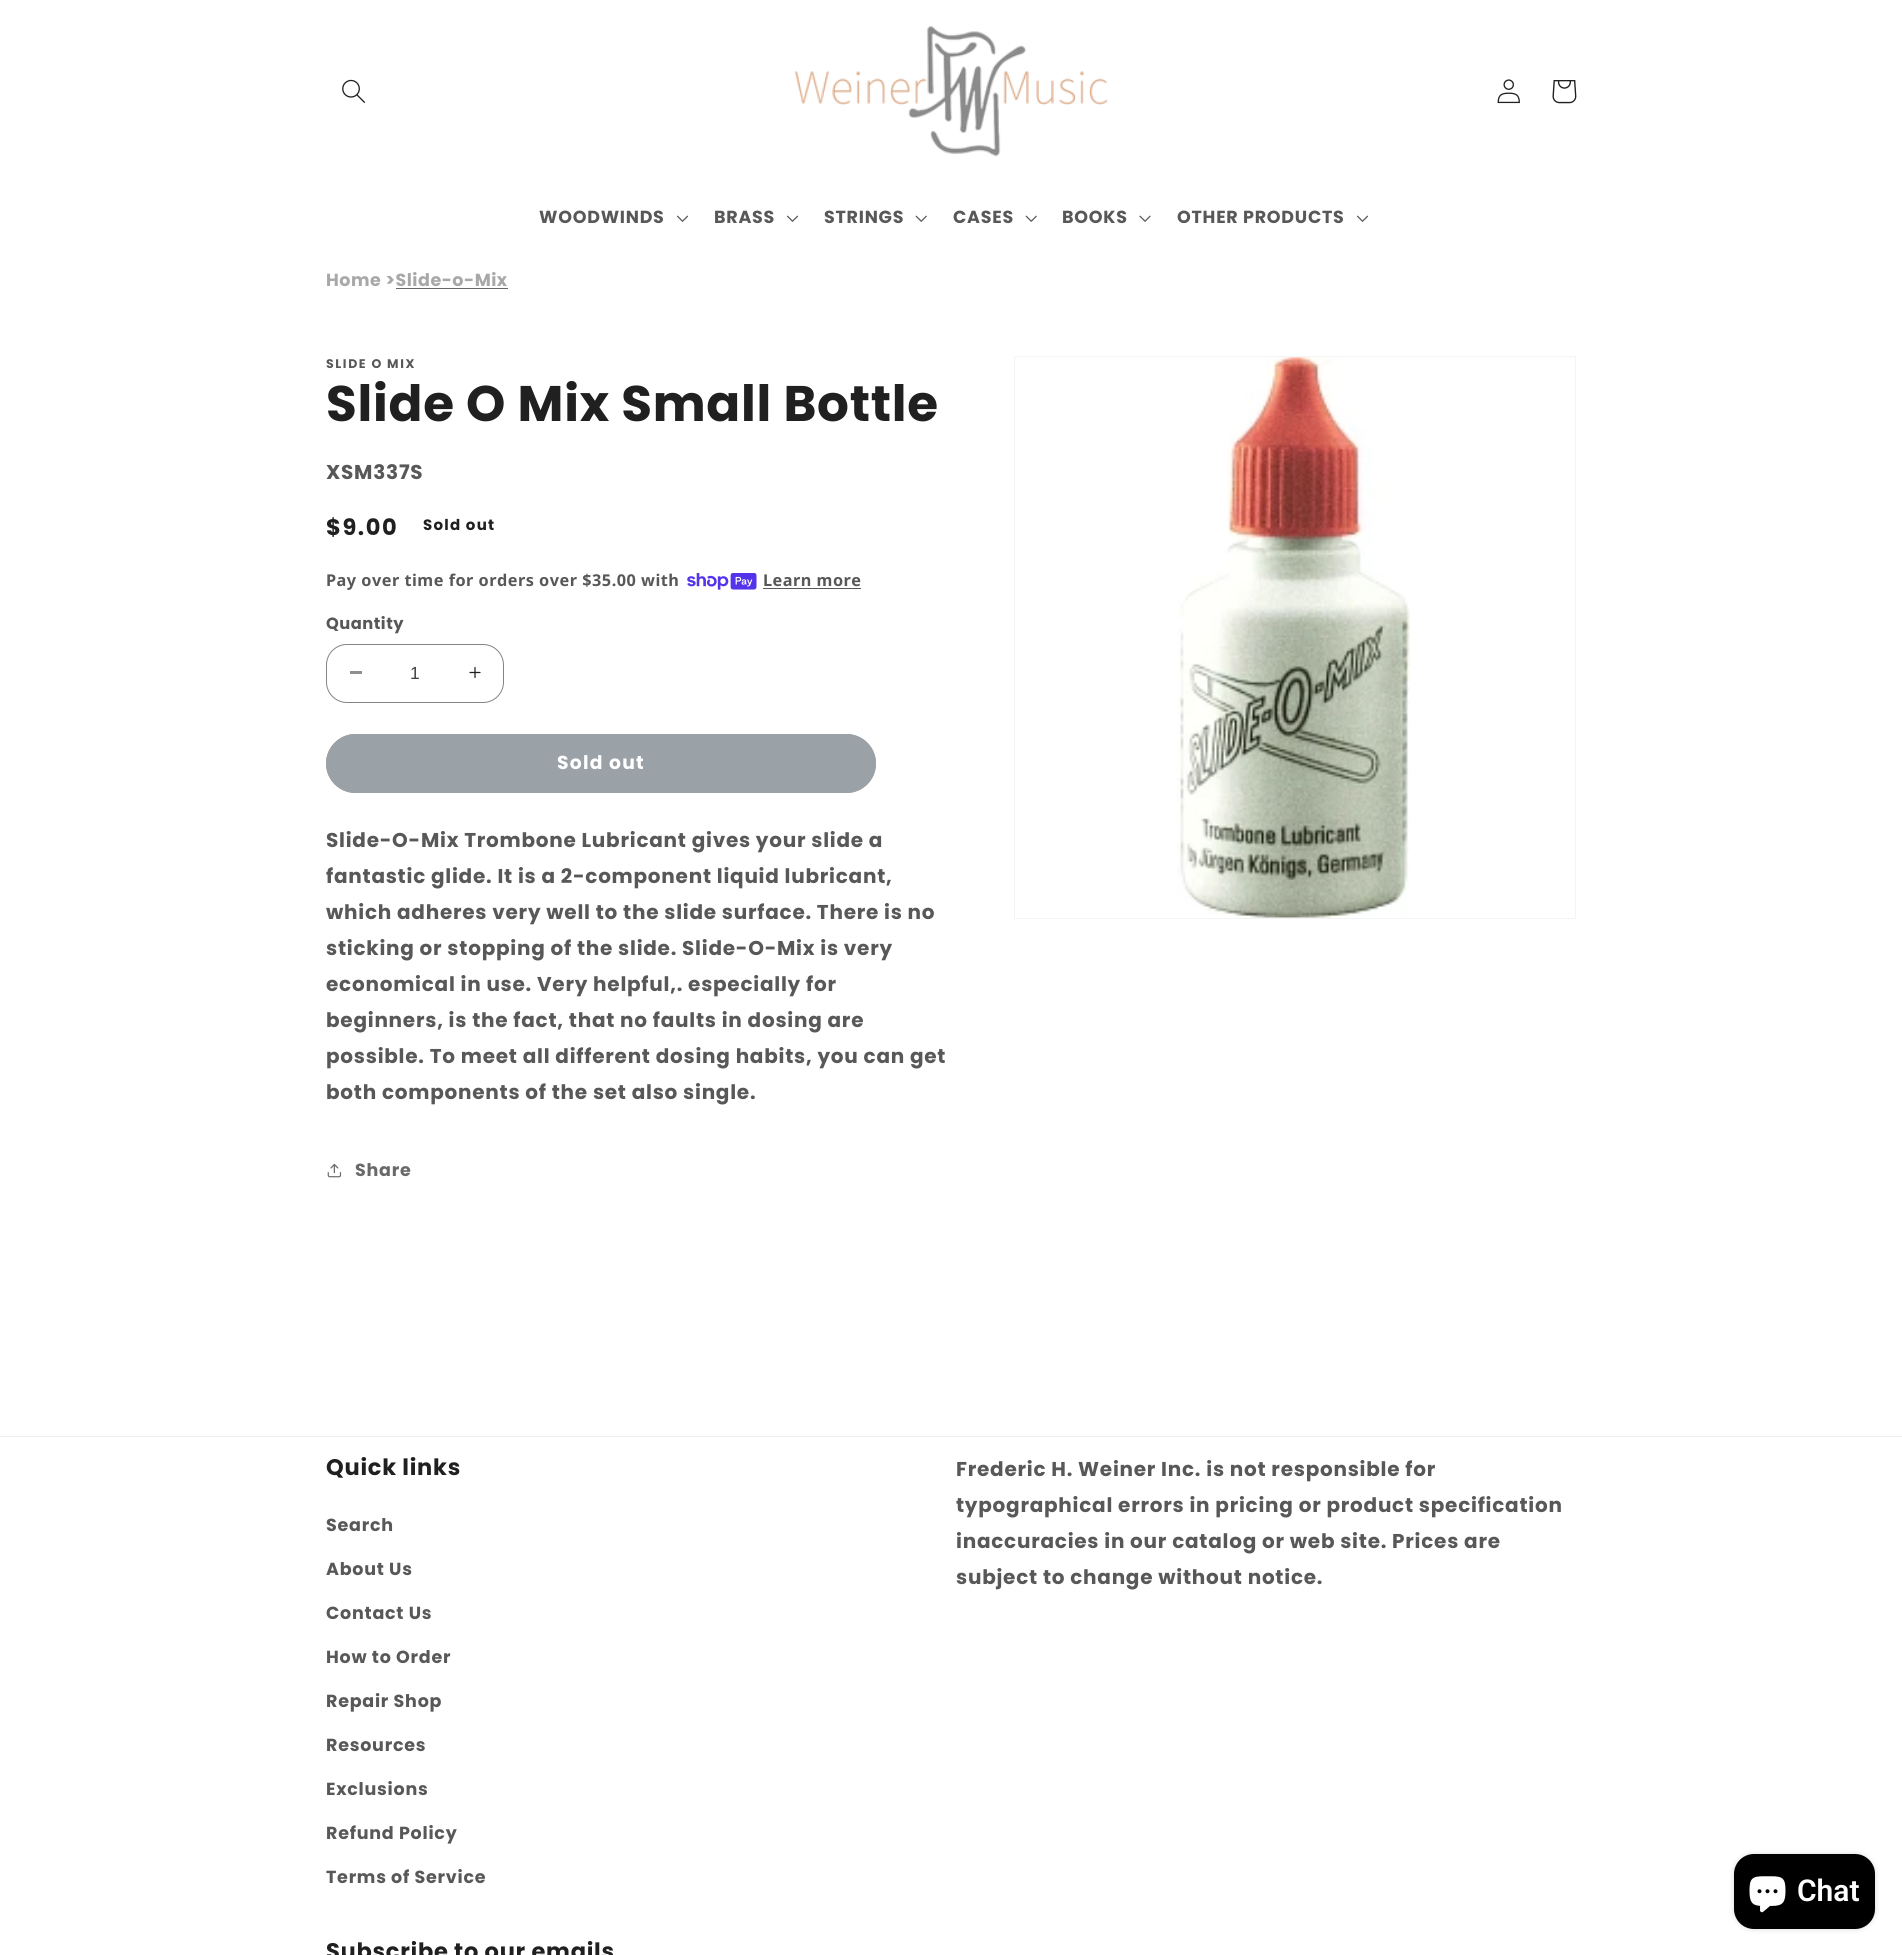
import math
import cairo


def write_spaced(ctx, x, y, s, letter, word):
	ctx.move_to(x, y)
	for ch in s:
		ctx.show_text(ch)
		ctx.rel_move_to(letter + word * (ch == ' '), 0)

def round_path(ctx, x, y, w, h, r):
	ctx.new_sub_path()
	for i, (u, v) in enumerate([(x + w - r, y + h - r), (x + r, y + h - r), (x + r, y + r), (x + w - r, y + r)]):
		ctx.arc(u, v, r, i * math.pi / 2, (i + 1) * math.pi / 2)
	ctx.close_path()

def blur_box(ctx, x, y, w, h, r, blur, alpha):
	ctx.push_group_with_content(cairo.CONTENT_ALPHA)
	ctx.set_operator(cairo.OPERATOR_SOURCE)
	for i in range(15, -16, -2):
		e = blur * i / 6
		if min(w, h) + 2 * e > 0:
			ctx.set_source_rgba(0, 0, 0, alpha * math.erfc((i - 1) / 8.5) / 2)
			round_path(ctx, x - e, y - e, w + 2 * e, h + 2 * e, max(0, min(r + e + blur * .6, min(w, h) / 2 + e)))
			ctx.fill()
	ctx.mask(ctx.pop_group())

def paste(ctx, path, x, y, w, h):
	ctx.save()
	ctx.set_source_surface(cairo.ImageSurface.create_from_png(path), x, y)
	ctx.rectangle(x, y, w, h)
	ctx.fill()
	ctx.restore()

def draw(ctx):
	ctx.set_source_rgb(1, 1, 1)
	ctx.paint()
	paste(ctx, 'media/1.png', 342, 79, 23, 24)
	paste(ctx, 'media/2.png', 794, 26, 314, 131)
	paste(ctx, 'media/3.png', 1497, 79, 23, 25)
	paste(ctx, 'media/4.png', 1552, 80, 25, 24)
	ctx.select_font_face('Poppins', cairo.FONT_SLANT_NORMAL, cairo.FONT_WEIGHT_BOLD)
	ctx.set_font_size(17.5)
	ctx.set_source_rgb(0.345, 0.345, 0.345)
	write_spaced(ctx, 539, 223, 'WOODWINDS', 0.75, 0)
	paste(ctx, 'media/5.png', 676, 215, 13, 7)
	write_spaced(ctx, 714, 223, 'BRASS', 0.75, 0)
	paste(ctx, 'media/5.png', 786, 215, 13, 7)
	write_spaced(ctx, 824, 223, 'STRINGS', 0.75, 0)
	paste(ctx, 'media/6.png', 915, 215, 12, 7)
	write_spaced(ctx, 953, 223, 'CASES', 0.75, 0)
	paste(ctx, 'media/6.png', 1025, 215, 12, 7)
	write_spaced(ctx, 1062, 223, 'BOOKS', 0.75, 0)
	paste(ctx, 'media/7.png', 1139, 215, 12, 7)
	write_spaced(ctx, 1177, 223, 'OTHER PRODUCTS', 0.75, 0)
	paste(ctx, 'media/5.png', 1356, 215, 13, 7)
	ctx.set_source_rgb(0.659, 0.659, 0.659)
	write_spaced(ctx, 326, 286, 'Home >Slide-o-Mix', 0.5, 0)
	ctx.set_source_rgb(0.412, 0.412, 0.412)
	ctx.rectangle(396, 288, 112, 1)
	ctx.fill()
	ctx.set_font_size(12.5)
	ctx.set_source_rgb(0.345, 0.345, 0.345)
	write_spaced(ctx, 326, 368, 'SLIDE O MIX', 1.6, 0)
	ctx.set_font_size(50)
	ctx.set_source_rgb(0.125, 0.125, 0.125)
	write_spaced(ctx, 326, 421, 'Slide O Mix Small Bottle', 0.75, 0)
	ctx.set_font_size(20)
	ctx.set_source_rgb(0.345, 0.345, 0.345)
	write_spaced(ctx, 326, 479, 'XSM337S', 0.75, 0)
	ctx.set_font_size(22.5)
	ctx.set_source_rgb(0.125, 0.125, 0.125)
	write_spaced(ctx, 326, 535, '$9.00', 1.6, 0)
	ctx.set_font_size(15)
	write_spaced(ctx, 423, 530, 'Sold out', 1.25, 0)
	ctx.select_font_face('Noto Sans', cairo.FONT_SLANT_NORMAL, cairo.FONT_WEIGHT_BOLD)
	ctx.set_font_size(16.25)
	ctx.set_source_rgb(0.345, 0.345, 0.345)
	write_spaced(ctx, 326, 586, 'Pay over time for orders over $35.00 with', 0.5, 0)
	paste(ctx, 'media/8.png', 687, 573, 70, 17)
	write_spaced(ctx, 763, 586, 'Learn more', 0.5, 0)
	ctx.rectangle(763, 588, 98, 1)
	ctx.fill()
	ctx.select_font_face('Poppins', cairo.FONT_SLANT_NORMAL, cairo.FONT_WEIGHT_BOLD)
	write_spaced(ctx, 326, 629, 'Quantity', 0.5, 0)
	ctx.set_source_rgb(0.565, 0.565, 0.565)
	ctx.rectangle(350, 671, 12, 3)
	ctx.fill()
	paste(ctx, 'media/9.png', 469, 666, 12, 13)
	round_path(ctx, 326.5, 644.5, 177, 58, 20.5)
	ctx.set_source_rgb(0.518, 0.518, 0.518)
	ctx.set_line_width(1)
	ctx.stroke()
	ctx.select_font_face('Liberation Sans')
	ctx.set_font_size(17.5)
	ctx.set_source_rgb(0.255, 0.255, 0.255)
	ctx.move_to(410, 679)
	ctx.show_text('1')
	ctx.set_source_rgb(0.608, 0.635, 0.655)
	round_path(ctx, 326, 734, 550, 59, 29.5)
	ctx.fill()
	round_path(ctx, 326.5, 734.5, 549, 58, 29)
	ctx.stroke()
	ctx.select_font_face('Poppins', cairo.FONT_SLANT_NORMAL, cairo.FONT_WEIGHT_BOLD)
	ctx.set_font_size(18.75)
	ctx.set_source_rgb(1, 1, 1)
	write_spaced(ctx, 557, 769, 'Sold out', 1.25, 0)
	ctx.set_font_size(20)
	ctx.set_source_rgb(0.345, 0.345, 0.345)
	for x, y, s in [
		(326, 847, 'Slide-O-Mix Trombone Lubricant gives your slide a'),
		(326, 883, 'fantastic glide. It is a 2-component liquid lubricant,'),
		(326, 919, 'which adheres very well to the slide surface. There is no'),
		(326, 955, 'sticking or stopping of the slide. Slide-O-Mix is very'),
		(326, 991, 'economical in use. Very helpful,. especially for'),
		(326, 1027, 'beginners, is the fact, that no faults in dosing are'),
		(326, 1063, 'possible. To meet all different dosing habits, you can get'),
		(326, 1099, 'both components of the set also single.'),
	]:
		write_spaced(ctx, x, y, s, 0.75, 0)
	paste(ctx, 'media/10.png', 327, 1163, 15, 15)
	ctx.set_font_size(17.5)
	ctx.set_source_rgb(0.412, 0.412, 0.412)
	write_spaced(ctx, 355, 1176, 'Share', 0.75, 0)
	ctx.rectangle(1014.5, 356.5, 561, 562)
	ctx.set_source_rgb(0.957, 0.957, 0.957)
	ctx.stroke()
	paste(ctx, 'media/11.png', 1177, 357, 233, 561)
	ctx.set_source_rgb(0.929, 0.929, 0.929)
	ctx.rectangle(0, 1436, 1902, 1)
	ctx.fill()
	ctx.set_font_size(22.5)
	ctx.set_source_rgb(0.125, 0.125, 0.125)
	write_spaced(ctx, 326, 1475, 'Quick links', 0.75, 0)
	ctx.set_font_size(17.5)
	ctx.set_source_rgb(0.345, 0.345, 0.345)
	for x, y, s in [
		(326, 1531, 'Search'),
		(326, 1575, 'About Us'),
		(326, 1619, 'Contact Us'),
		(326, 1663, 'How to Order'),
		(326, 1707, 'Repair Shop'),
		(326, 1751, 'Resources'),
		(326, 1795, 'Exclusions'),
		(326, 1839, 'Refund Policy'),
		(326, 1883, 'Terms of Service'),
	]:
		write_spaced(ctx, x, y, s, 0.75, 0)
	ctx.set_font_size(20)
	for x, y, s in [
		(956, 1476, 'Frederic H. Weiner Inc. is not responsible for'),
		(956, 1512, 'typographical errors in pricing or product specification'),
		(956, 1548, 'inaccuracies in our catalog or web site. Prices are'),
		(956, 1584, 'subject to change without notice.'),
	]:
		write_spaced(ctx, x, y, s, 0.75, 0)
	ctx.set_font_size(22.5)
	ctx.set_source_rgb(0.125, 0.125, 0.125)
	write_spaced(ctx, 326, 1959, 'Subscribe to our emails', 0.75, 0)
	ctx.set_source_rgb(0, 0, 0)
	blur_box(ctx, 1734, 1854, 141, 75, 20, 3, 0.15)
	ctx.set_source_rgb(0, 0, 0)
	round_path(ctx, 1734, 1854, 141, 75, 20)
	ctx.fill()
	paste(ctx, 'media/12.png', 1749, 1876, 37, 37)
	ctx.select_font_face('Roboto SemiBold')
	ctx.set_font_size(30)
	ctx.set_source_rgb(1, 1, 1)
	ctx.move_to(1797, 1901)
	ctx.show_text('Chat')


surface = cairo.ImageSurface(cairo.FORMAT_RGB24, 1902, 1955)
ctx = cairo.Context(surface)
options = cairo.FontOptions()
options.set_hint_metrics(cairo.HINT_METRICS_OFF)
options.set_hint_style(cairo.HINT_STYLE_NONE)
ctx.set_font_options(options)
ctx.set_miter_limit(4)
draw(ctx)
surface.write_to_png('image.png')
